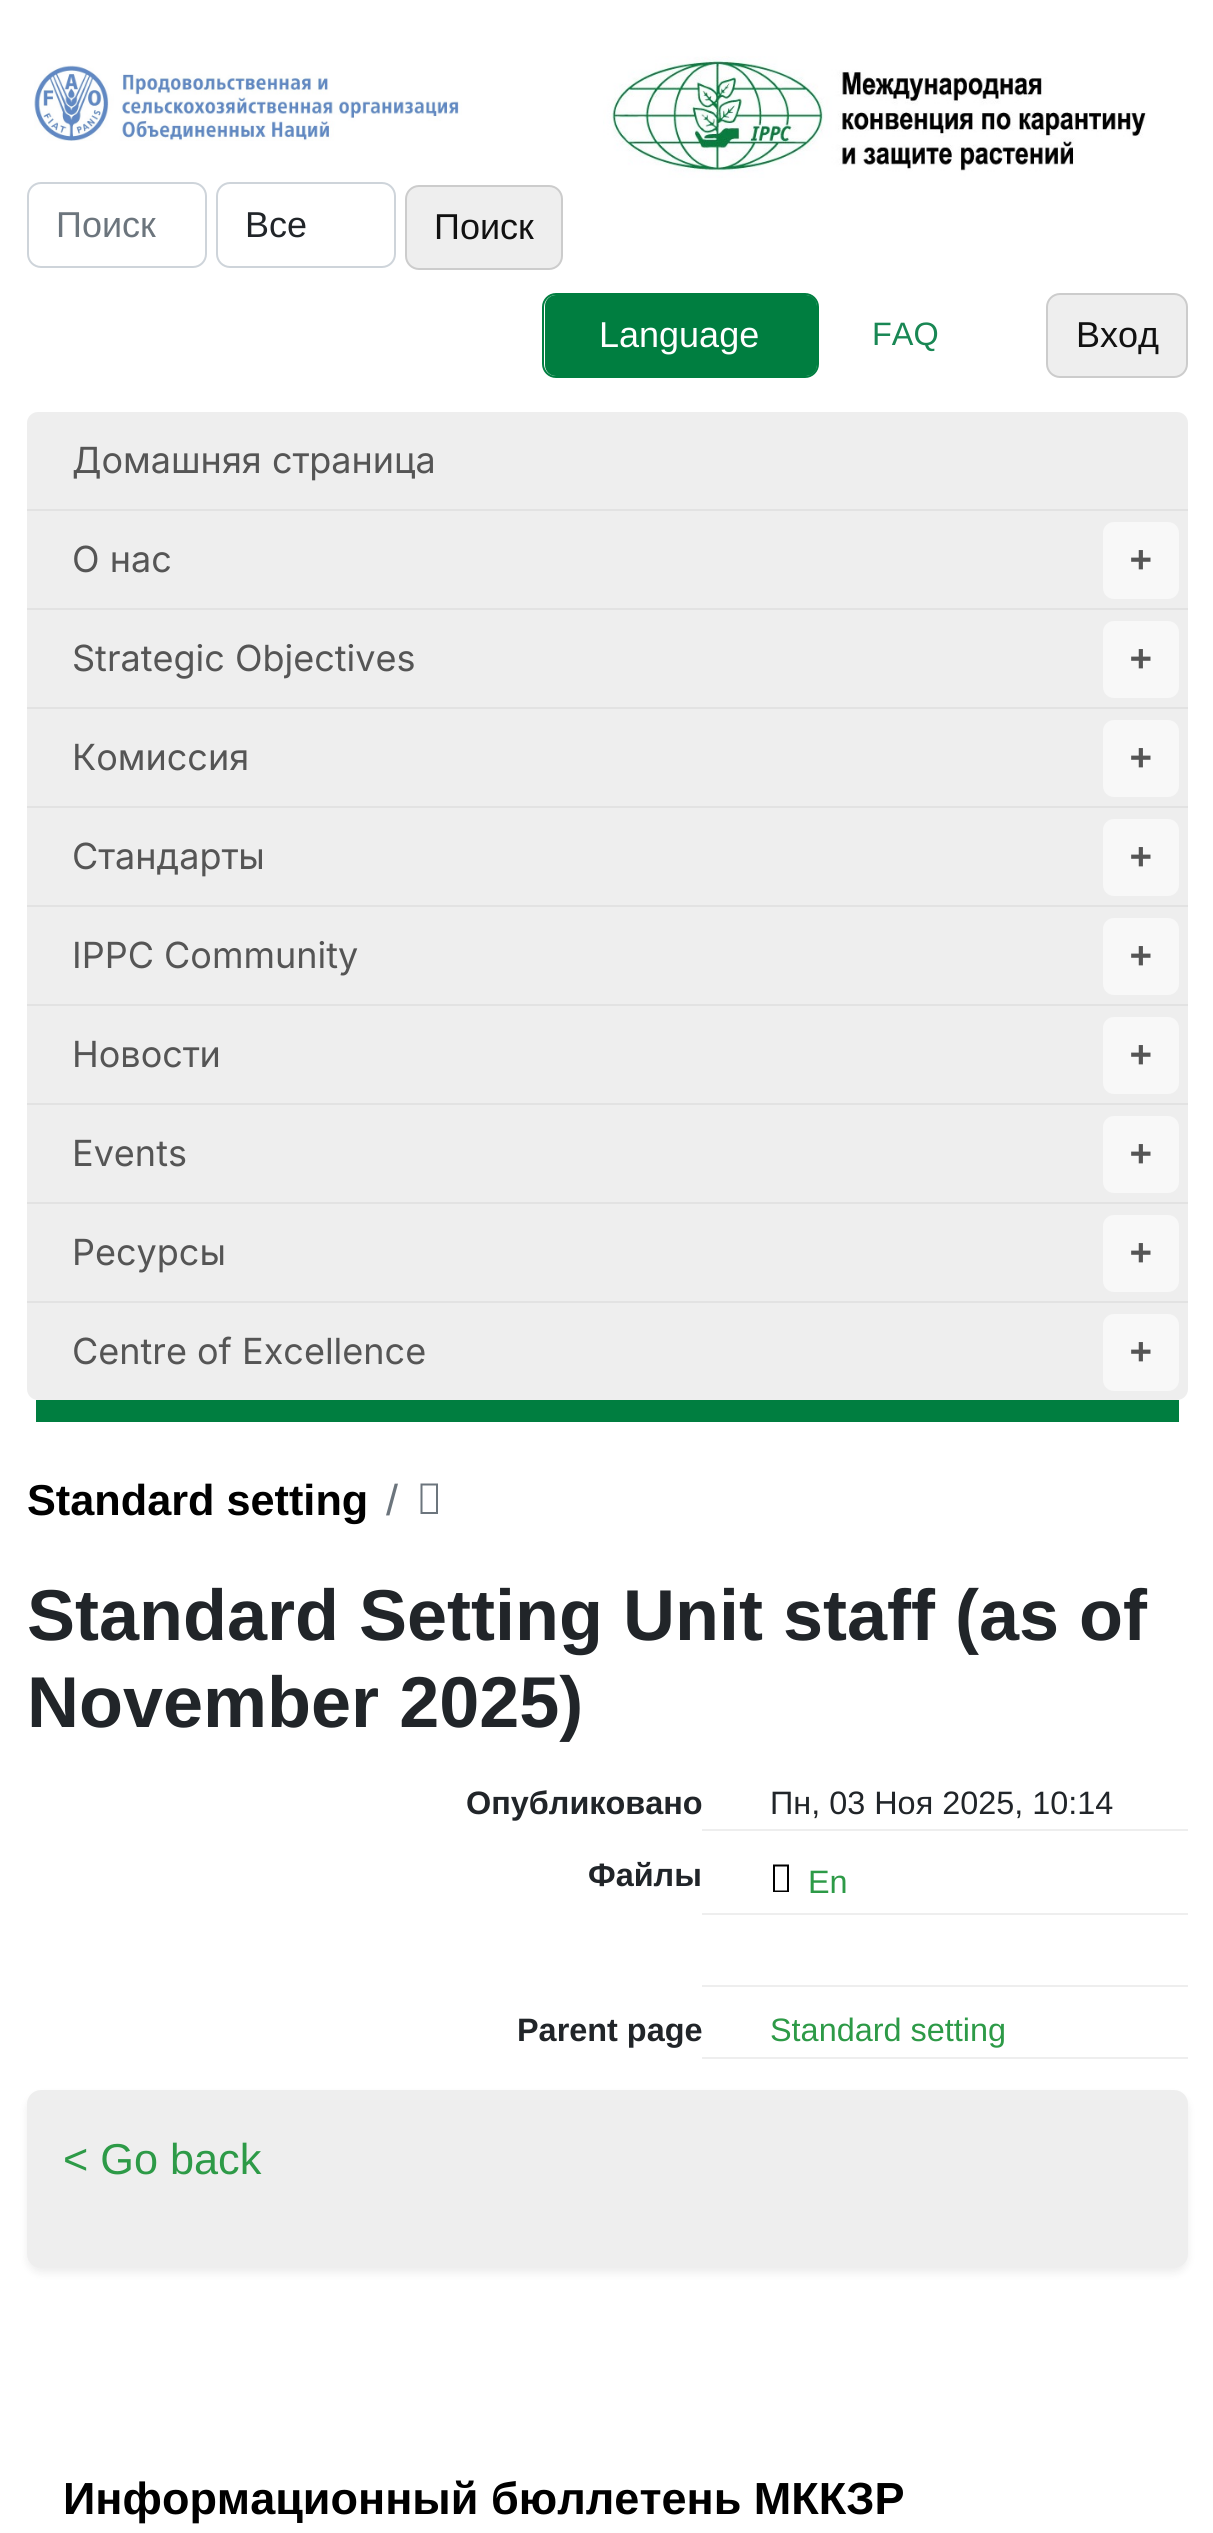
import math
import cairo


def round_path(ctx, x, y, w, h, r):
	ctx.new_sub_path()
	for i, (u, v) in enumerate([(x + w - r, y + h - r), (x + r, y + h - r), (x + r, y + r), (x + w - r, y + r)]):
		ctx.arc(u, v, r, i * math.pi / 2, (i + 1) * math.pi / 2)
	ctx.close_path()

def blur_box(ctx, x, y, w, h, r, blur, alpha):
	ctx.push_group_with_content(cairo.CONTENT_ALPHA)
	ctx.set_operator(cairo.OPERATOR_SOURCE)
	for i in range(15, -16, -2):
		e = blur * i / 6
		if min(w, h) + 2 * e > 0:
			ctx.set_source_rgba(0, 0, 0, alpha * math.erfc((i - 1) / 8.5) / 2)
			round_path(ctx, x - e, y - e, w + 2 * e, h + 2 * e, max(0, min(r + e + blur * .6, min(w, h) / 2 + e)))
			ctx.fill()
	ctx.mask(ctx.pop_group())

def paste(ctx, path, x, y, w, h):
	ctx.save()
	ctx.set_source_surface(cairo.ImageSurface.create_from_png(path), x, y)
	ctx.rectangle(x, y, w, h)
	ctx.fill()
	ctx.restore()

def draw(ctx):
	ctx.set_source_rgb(1, 1, 1)
	ctx.paint()
	paste(ctx, 'media/1.png', 34, 65, 428, 76)
	paste(ctx, 'media/2.png', 603, 56, 544, 122)
	round_path(ctx, 28, 183, 178, 84, 13)
	ctx.set_source_rgb(0.808, 0.831, 0.855)
	ctx.stroke()
	ctx.select_font_face('Liberation Sans')
	ctx.set_font_size(36)
	ctx.set_source_rgb(0.424, 0.459, 0.49)
	ctx.move_to(56, 237)
	ctx.show_text('Поиск')
	round_path(ctx, 217, 183, 178, 84, 13)
	ctx.set_source_rgb(0.808, 0.831, 0.855)
	ctx.stroke()
	ctx.set_source_rgb(0.129, 0.145, 0.161)
	ctx.move_to(245, 237)
	ctx.show_text('Все')
	ctx.set_source_rgb(0.933, 0.933, 0.933)
	round_path(ctx, 406, 186, 156, 83, 13)
	ctx.fill_preserve()
	ctx.set_source_rgb(0.8, 0.8, 0.8)
	ctx.stroke()
	ctx.set_source_rgb(0.067, 0.067, 0.067)
	ctx.move_to(434, 239)
	ctx.show_text('Поиск')
	ctx.set_source_rgb(0, 0.494, 0.251)
	round_path(ctx, 545, 295, 272, 81, 11)
	ctx.fill()
	round_path(ctx, 543, 294, 275, 83, 13)
	ctx.stroke()
	ctx.set_source_rgb(1, 1, 1)
	ctx.move_to(599, 347)
	ctx.show_text('Language')
	ctx.set_font_size(32.4)
	ctx.set_source_rgb(0.098, 0.529, 0.329)
	ctx.move_to(872, 345)
	ctx.show_text('FAQ')
	ctx.set_source_rgb(0.933, 0.933, 0.933)
	round_path(ctx, 1047, 294, 140, 83, 13)
	ctx.fill_preserve()
	ctx.set_source_rgb(0.8, 0.8, 0.8)
	ctx.stroke()
	ctx.set_font_size(36)
	ctx.set_source_rgb(0.067, 0.067, 0.067)
	ctx.move_to(1076, 347)
	ctx.show_text('Вход')
	ctx.set_source_rgb(0, 0.494, 0.251)
	ctx.rectangle(36, 1400, 1143, 22)
	ctx.fill()
	ctx.set_source_rgb(0.933, 0.933, 0.933)
	round_path(ctx, 27, 412, 1161, 988, 11)
	ctx.fill()
	ctx.select_font_face('Inter')
	ctx.set_source_rgb(0.333, 0.333, 0.333)
	ctx.move_to(72, 473)
	ctx.show_text('Домашняя страница')
	ctx.set_source_rgb(0.886, 0.886, 0.886)
	ctx.rectangle(27, 509, 1161, 2)
	ctx.fill()
	ctx.set_source_rgb(0.333, 0.333, 0.333)
	ctx.move_to(72, 572)
	ctx.show_text('О нас')
	ctx.set_source_rgb(0.969, 0.969, 0.969)
	round_path(ctx, 1103, 522, 76, 77, 11)
	ctx.fill()
	ctx.select_font_face('DejaVu Sans Mono', cairo.FONT_SLANT_NORMAL, cairo.FONT_WEIGHT_BOLD)
	ctx.set_source_rgb(0.333, 0.333, 0.333)
	ctx.move_to(1130, 571)
	ctx.show_text('+')
	ctx.set_source_rgb(0.886, 0.886, 0.886)
	ctx.rectangle(27, 608, 1161, 2)
	ctx.fill()
	ctx.select_font_face('Inter')
	ctx.set_source_rgb(0.333, 0.333, 0.333)
	ctx.move_to(72, 671)
	ctx.show_text('Strategic Objectives')
	ctx.set_source_rgb(0.969, 0.969, 0.969)
	round_path(ctx, 1103, 621, 76, 77, 11)
	ctx.fill()
	ctx.select_font_face('DejaVu Sans Mono', cairo.FONT_SLANT_NORMAL, cairo.FONT_WEIGHT_BOLD)
	ctx.set_source_rgb(0.333, 0.333, 0.333)
	ctx.move_to(1130, 670)
	ctx.show_text('+')
	ctx.set_source_rgb(0.886, 0.886, 0.886)
	ctx.rectangle(27, 707, 1161, 2)
	ctx.fill()
	ctx.select_font_face('Inter')
	ctx.set_source_rgb(0.333, 0.333, 0.333)
	ctx.move_to(72, 770)
	ctx.show_text('Комиссия')
	ctx.set_source_rgb(0.969, 0.969, 0.969)
	round_path(ctx, 1103, 720, 76, 77, 11)
	ctx.fill()
	ctx.select_font_face('DejaVu Sans Mono', cairo.FONT_SLANT_NORMAL, cairo.FONT_WEIGHT_BOLD)
	ctx.set_source_rgb(0.333, 0.333, 0.333)
	ctx.move_to(1130, 769)
	ctx.show_text('+')
	ctx.set_source_rgb(0.886, 0.886, 0.886)
	ctx.rectangle(27, 806, 1161, 2)
	ctx.fill()
	ctx.select_font_face('Inter')
	ctx.set_source_rgb(0.333, 0.333, 0.333)
	ctx.move_to(72, 869)
	ctx.show_text('Стандарты')
	ctx.set_source_rgb(0.969, 0.969, 0.969)
	round_path(ctx, 1103, 819, 76, 77, 11)
	ctx.fill()
	ctx.select_font_face('DejaVu Sans Mono', cairo.FONT_SLANT_NORMAL, cairo.FONT_WEIGHT_BOLD)
	ctx.set_source_rgb(0.333, 0.333, 0.333)
	ctx.move_to(1130, 868)
	ctx.show_text('+')
	ctx.set_source_rgb(0.886, 0.886, 0.886)
	ctx.rectangle(27, 905, 1161, 2)
	ctx.fill()
	ctx.select_font_face('Inter')
	ctx.set_source_rgb(0.333, 0.333, 0.333)
	ctx.move_to(72, 968)
	ctx.show_text('IPPC Community')
	ctx.set_source_rgb(0.969, 0.969, 0.969)
	round_path(ctx, 1103, 918, 76, 77, 11)
	ctx.fill()
	ctx.select_font_face('DejaVu Sans Mono', cairo.FONT_SLANT_NORMAL, cairo.FONT_WEIGHT_BOLD)
	ctx.set_source_rgb(0.333, 0.333, 0.333)
	ctx.move_to(1130, 967)
	ctx.show_text('+')
	ctx.set_source_rgb(0.886, 0.886, 0.886)
	ctx.rectangle(27, 1004, 1161, 2)
	ctx.fill()
	ctx.select_font_face('Inter')
	ctx.set_source_rgb(0.333, 0.333, 0.333)
	ctx.move_to(72, 1067)
	ctx.show_text('Новости')
	ctx.set_source_rgb(0.969, 0.969, 0.969)
	round_path(ctx, 1103, 1017, 76, 77, 11)
	ctx.fill()
	ctx.select_font_face('DejaVu Sans Mono', cairo.FONT_SLANT_NORMAL, cairo.FONT_WEIGHT_BOLD)
	ctx.set_source_rgb(0.333, 0.333, 0.333)
	ctx.move_to(1130, 1066)
	ctx.show_text('+')
	ctx.set_source_rgb(0.886, 0.886, 0.886)
	ctx.rectangle(27, 1103, 1161, 2)
	ctx.fill()
	ctx.select_font_face('Inter')
	ctx.set_source_rgb(0.333, 0.333, 0.333)
	ctx.move_to(72, 1166)
	ctx.show_text('Events')
	ctx.set_source_rgb(0.969, 0.969, 0.969)
	round_path(ctx, 1103, 1116, 76, 77, 11)
	ctx.fill()
	ctx.select_font_face('DejaVu Sans Mono', cairo.FONT_SLANT_NORMAL, cairo.FONT_WEIGHT_BOLD)
	ctx.set_source_rgb(0.333, 0.333, 0.333)
	ctx.move_to(1130, 1165)
	ctx.show_text('+')
	ctx.set_source_rgb(0.886, 0.886, 0.886)
	ctx.rectangle(27, 1202, 1161, 2)
	ctx.fill()
	ctx.select_font_face('Inter')
	ctx.set_source_rgb(0.333, 0.333, 0.333)
	ctx.move_to(72, 1265)
	ctx.show_text('Ресурсы')
	ctx.set_source_rgb(0.969, 0.969, 0.969)
	round_path(ctx, 1103, 1215, 76, 77, 11)
	ctx.fill()
	ctx.select_font_face('DejaVu Sans Mono', cairo.FONT_SLANT_NORMAL, cairo.FONT_WEIGHT_BOLD)
	ctx.set_source_rgb(0.333, 0.333, 0.333)
	ctx.move_to(1130, 1264)
	ctx.show_text('+')
	ctx.set_source_rgb(0.886, 0.886, 0.886)
	ctx.rectangle(27, 1301, 1161, 2)
	ctx.fill()
	ctx.select_font_face('Inter')
	ctx.set_source_rgb(0.333, 0.333, 0.333)
	ctx.move_to(72, 1364)
	ctx.show_text('Centre of Excellence')
	ctx.set_source_rgb(0.969, 0.969, 0.969)
	round_path(ctx, 1103, 1314, 76, 77, 11)
	ctx.fill()
	ctx.select_font_face('DejaVu Sans Mono', cairo.FONT_SLANT_NORMAL, cairo.FONT_WEIGHT_BOLD)
	ctx.set_source_rgb(0.333, 0.333, 0.333)
	ctx.move_to(1130, 1363)
	ctx.show_text('+')
	ctx.select_font_face('Liberation Sans', cairo.FONT_SLANT_NORMAL, cairo.FONT_WEIGHT_BOLD)
	ctx.set_font_size(43.25)
	ctx.set_source_rgb(0, 0, 0)
	ctx.move_to(27, 1515)
	ctx.show_text('Standard setting')
	ctx.select_font_face('Liberation Sans')
	ctx.set_source_rgb(0.424, 0.459, 0.49)
	ctx.move_to(386, 1515)
	ctx.show_text('/')
	ctx.new_path()
	ctx.move_to(420.5, 1514)
	ctx.line_to(420.5, 1483.5)
	ctx.line_to(438, 1483.5)
	ctx.line_to(438, 1514)
	ctx.close_path()
	ctx.move_to(422.5, 1512)
	ctx.line_to(436, 1512)
	ctx.line_to(436, 1485.5)
	ctx.line_to(422.5, 1485.5)
	ctx.close_path()
	ctx.fill()
	ctx.select_font_face('Liberation Sans', cairo.FONT_SLANT_NORMAL, cairo.FONT_WEIGHT_BOLD)
	ctx.set_font_size(72)
	ctx.set_source_rgb(0.129, 0.145, 0.161)
	ctx.move_to(27, 1640)
	ctx.show_text('Standard Setting Unit staff (as of')
	ctx.move_to(27, 1727)
	ctx.show_text('November 2025)')
	ctx.set_font_size(32.4)
	ctx.move_to(466, 1814)
	ctx.show_text('Опубликовано')
	ctx.set_source_rgb(0.933, 0.933, 0.933)
	ctx.rectangle(702, 1829, 486, 2)
	ctx.fill()
	ctx.select_font_face('Liberation Sans')
	ctx.set_source_rgb(0.129, 0.145, 0.161)
	ctx.move_to(770, 1814)
	ctx.show_text('Пн, 03 Ноя 2025, 10:14')
	ctx.select_font_face('Liberation Sans', cairo.FONT_SLANT_NORMAL, cairo.FONT_WEIGHT_BOLD)
	ctx.move_to(588, 1886)
	ctx.show_text('Файлы')
	ctx.set_source_rgb(0.933, 0.933, 0.933)
	ctx.rectangle(702, 1913, 486, 2)
	ctx.fill()
	ctx.set_source_rgb(0, 0, 0)
	ctx.new_path()
	ctx.move_to(773, 1892)
	ctx.line_to(773, 1864.5)
	ctx.line_to(789, 1864.5)
	ctx.line_to(789, 1892)
	ctx.close_path()
	ctx.move_to(775, 1890.5)
	ctx.line_to(787, 1890.5)
	ctx.line_to(787, 1866.5)
	ctx.line_to(775, 1866.5)
	ctx.close_path()
	ctx.fill()
	ctx.select_font_face('Liberation Sans')
	ctx.set_source_rgb(0.176, 0.604, 0.278)
	ctx.move_to(808, 1893)
	ctx.show_text('En')
	ctx.set_source_rgb(0.933, 0.933, 0.933)
	ctx.rectangle(702, 1985, 486, 2)
	ctx.fill()
	ctx.select_font_face('Liberation Sans', cairo.FONT_SLANT_NORMAL, cairo.FONT_WEIGHT_BOLD)
	ctx.set_source_rgb(0.129, 0.145, 0.161)
	ctx.move_to(517, 2041)
	ctx.show_text('Parent page')
	ctx.set_source_rgb(0.933, 0.933, 0.933)
	ctx.rectangle(702, 2057, 486, 2)
	ctx.fill()
	ctx.select_font_face('Liberation Sans')
	ctx.set_source_rgb(0.176, 0.604, 0.278)
	ctx.move_to(770, 2041)
	ctx.show_text('Standard setting')
	ctx.set_source_rgb(0, 0, 0)
	blur_box(ctx, 27, 2095, 1161, 178, 14, 4.5, 0.07)
	ctx.set_source_rgb(0.933, 0.933, 0.933)
	round_path(ctx, 27, 2090, 1161, 178, 14)
	ctx.fill()
	ctx.set_font_size(43.25)
	ctx.set_source_rgb(0.176, 0.604, 0.278)
	ctx.move_to(63, 2174)
	ctx.show_text('< Go back')
	ctx.select_font_face('Liberation Sans', cairo.FONT_SLANT_NORMAL, cairo.FONT_WEIGHT_BOLD)
	ctx.set_font_size(45)
	ctx.set_source_rgb(0, 0, 0)
	ctx.move_to(63, 2514)
	ctx.show_text('Информационный бюллетень МККЗР')


surface = cairo.ImageSurface(cairo.FORMAT_RGB24, 1213, 2533)
ctx = cairo.Context(surface)
options = cairo.FontOptions()
options.set_hint_metrics(cairo.HINT_METRICS_OFF)
options.set_hint_style(cairo.HINT_STYLE_NONE)
ctx.set_font_options(options)
ctx.set_miter_limit(4)
draw(ctx)
surface.write_to_png('image.png')
